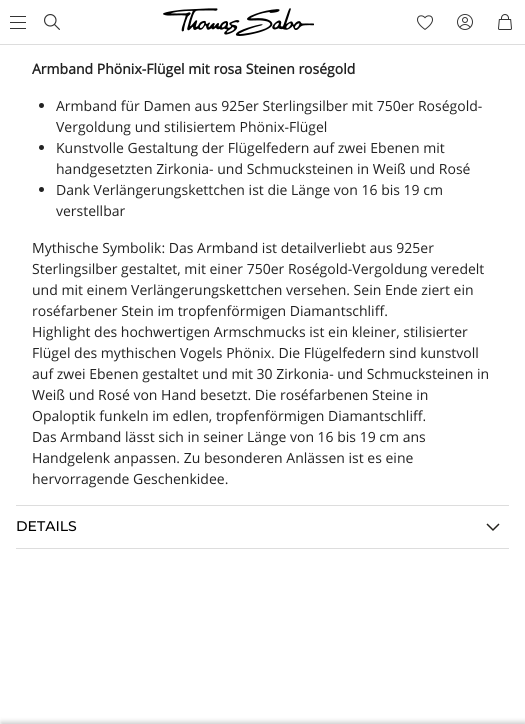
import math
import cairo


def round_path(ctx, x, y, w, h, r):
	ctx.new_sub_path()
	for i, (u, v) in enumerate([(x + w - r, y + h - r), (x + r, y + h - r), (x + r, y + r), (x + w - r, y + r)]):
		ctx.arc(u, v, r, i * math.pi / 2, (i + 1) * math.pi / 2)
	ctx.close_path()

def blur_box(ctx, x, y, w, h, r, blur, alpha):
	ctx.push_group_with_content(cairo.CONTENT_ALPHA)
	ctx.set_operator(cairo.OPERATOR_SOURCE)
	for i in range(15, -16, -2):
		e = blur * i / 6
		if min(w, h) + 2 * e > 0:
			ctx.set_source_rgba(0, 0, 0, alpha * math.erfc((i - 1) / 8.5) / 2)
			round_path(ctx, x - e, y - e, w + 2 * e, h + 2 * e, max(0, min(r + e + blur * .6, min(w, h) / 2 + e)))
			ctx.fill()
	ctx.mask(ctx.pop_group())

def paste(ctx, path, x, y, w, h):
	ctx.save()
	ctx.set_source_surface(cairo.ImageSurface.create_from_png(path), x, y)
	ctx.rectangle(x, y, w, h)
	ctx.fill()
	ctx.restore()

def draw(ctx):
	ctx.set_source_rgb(1, 1, 1)
	ctx.paint()
	ctx.set_source_rgb(0.867, 0.867, 0.867)
	ctx.rectangle(0, 44, 525, 1)
	ctx.fill()
	ctx.set_source_rgb(0.204, 0.204, 0.204)
	ctx.rectangle(10, 16, 16, 1)
	ctx.rectangle(10, 22, 16, 1)
	ctx.rectangle(10, 28, 16, 1)
	ctx.fill()
	paste(ctx, 'media/1.png', 44, 14, 16, 16)
	paste(ctx, 'media/2.png', 163, 8, 151, 28)
	paste(ctx, 'media/3.png', 417, 15, 16, 15)
	paste(ctx, 'media/4.png', 457, 14, 16, 16)
	paste(ctx, 'media/5.png', 498, 14, 14, 16)
	ctx.set_source_rgb(0.867, 0.867, 0.867)
	ctx.rectangle(16, 505, 493, 1)
	ctx.fill()
	ctx.select_font_face('Open Sans', cairo.FONT_SLANT_NORMAL, cairo.FONT_WEIGHT_BOLD)
	ctx.set_font_size(14)
	ctx.set_source_rgb(0.133, 0.133, 0.133)
	ctx.move_to(32, 74)
	ctx.show_text('Armband Phönix-Flügel mit rosa Steinen roségold')
	ctx.new_path()
	ctx.arc(41.5, 105.5, 2.5, 0, 2 * math.pi)
	ctx.fill()
	ctx.select_font_face('Open Sans')
	ctx.move_to(56, 111)
	ctx.show_text('Armband für Damen aus 925er Sterlingsilber mit 750er Roségold-')
	ctx.move_to(56, 132)
	ctx.show_text('Vergoldung und stilisiertem Phönix-Flügel')
	ctx.new_path()
	ctx.arc(41.5, 147.5, 2.5, 0, 2 * math.pi)
	ctx.fill()
	ctx.move_to(56, 153)
	ctx.show_text('Kunstvolle Gestaltung der Flügelfedern auf zwei Ebenen mit')
	ctx.move_to(56, 174)
	ctx.show_text('handgesetzten Zirkonia- und Schmucksteinen in Weiß und Rosé')
	ctx.new_path()
	ctx.arc(41.5, 189.5, 2.5, 0, 2 * math.pi)
	ctx.fill()
	for x, y, s in [
		(56, 195, 'Dank Verlängerungskettchen ist die Länge von 16 bis 19 cm'),
		(56, 216, 'verstellbar'),
		(32, 253, 'Mythische Symbolik: Das Armband ist detailverliebt aus 925er'),
		(32, 274, 'Sterlingsilber gestaltet, mit einer 750er Roségold-Vergoldung veredelt'),
		(32, 295, 'und mit einem Verlängerungskettchen versehen. Sein Ende ziert ein'),
		(32, 316, 'roséfarbener Stein im tropfenförmigen Diamantschliff.'),
		(32, 337, 'Highlight des hochwertigen Armschmucks ist ein kleiner, stilisierter'),
		(32, 358, 'Flügel des mythischen Vogels Phönix. Die Flügelfedern sind kunstvoll'),
		(32, 379, 'auf zwei Ebenen gestaltet und mit 30 Zirkonia- und Schmucksteinen in'),
		(32, 400, 'Weiß und Rosé von Hand besetzt. Die roséfarbenen Steine in'),
		(32, 421, 'Opaloptik funkeln im edlen, tropfenförmigen Diamantschliff.'),
		(32, 442, 'Das Armband lässt sich in seiner Länge von 16 bis 19 cm ans'),
		(32, 463, 'Handgelenk anpassen. Zu besonderen Anlässen ist es eine'),
		(32, 484, 'hervorragende Geschenkidee.'),
	]:
		ctx.move_to(x, y)
		ctx.show_text(s)
	ctx.set_source_rgb(0.867, 0.867, 0.867)
	ctx.rectangle(16, 548, 493, 1)
	ctx.fill()
	ctx.select_font_face('Montserrat Thin')
	ctx.set_source_rgb(0, 0, 0)
	ctx.move_to(16, 531)
	ctx.show_text('DETAILS')
	paste(ctx, 'media/6.png', 486, 523, 14, 8)
	ctx.set_source_rgb(0, 0, 0)
	blur_box(ctx, 1, 722, 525, 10, 0, 2.5, 0.2)


surface = cairo.ImageSurface(cairo.FORMAT_RGB24, 525, 724)
ctx = cairo.Context(surface)
options = cairo.FontOptions()
options.set_hint_metrics(cairo.HINT_METRICS_OFF)
options.set_hint_style(cairo.HINT_STYLE_NONE)
ctx.set_font_options(options)
ctx.set_miter_limit(4)
draw(ctx)
surface.write_to_png('image.png')
